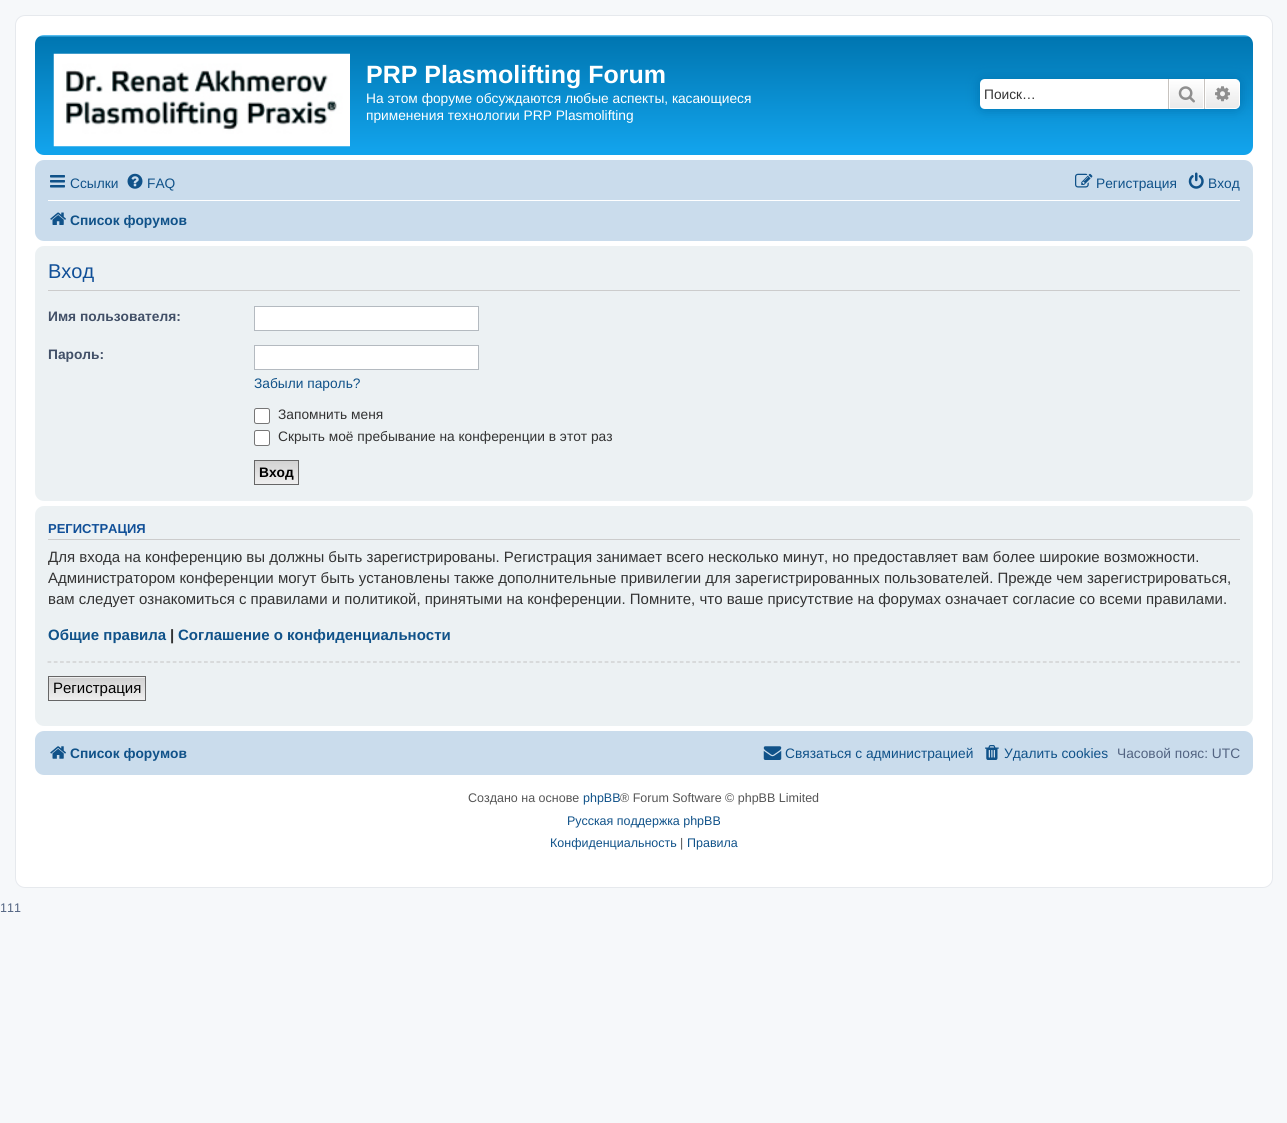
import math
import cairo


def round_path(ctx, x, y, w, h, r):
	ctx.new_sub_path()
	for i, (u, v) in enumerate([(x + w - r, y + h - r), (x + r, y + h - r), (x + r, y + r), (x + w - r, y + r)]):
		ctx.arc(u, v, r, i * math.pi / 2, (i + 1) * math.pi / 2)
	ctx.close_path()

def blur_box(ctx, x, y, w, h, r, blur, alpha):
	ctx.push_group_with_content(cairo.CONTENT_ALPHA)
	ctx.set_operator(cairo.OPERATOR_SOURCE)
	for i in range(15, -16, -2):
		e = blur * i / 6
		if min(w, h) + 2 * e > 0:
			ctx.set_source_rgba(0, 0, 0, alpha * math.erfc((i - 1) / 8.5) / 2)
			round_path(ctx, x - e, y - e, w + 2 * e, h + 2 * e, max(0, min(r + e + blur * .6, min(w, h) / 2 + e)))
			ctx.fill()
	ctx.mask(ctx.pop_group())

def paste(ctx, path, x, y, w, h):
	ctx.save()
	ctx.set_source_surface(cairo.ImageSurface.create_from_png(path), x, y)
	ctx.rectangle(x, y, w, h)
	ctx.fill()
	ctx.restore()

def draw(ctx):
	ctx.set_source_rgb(0.961, 0.969, 0.98)
	ctx.paint()
	ctx.set_source_rgb(1, 1, 1)
	round_path(ctx, 15.5, 15.5, 1257, 872, 9.5)
	ctx.fill_preserve()
	ctx.set_source_rgb(0.902, 0.914, 0.929)
	ctx.set_line_width(1)
	ctx.stroke()
	gradient = cairo.LinearGradient(644, 35, 644, 155)
	gradient.add_color_stop_rgba(0, 0.416, 0.808, 1, 1)
	gradient.add_color_stop_rgba(0.02, 0, 0.463, 0.694, 1)
	gradient.add_color_stop_rgba(0.96, 0.071, 0.639, 0.922, 1)
	gradient.add_color_stop_rgba(1, 0.071, 0.639, 0.922, 1)
	ctx.set_source(gradient)
	round_path(ctx, 35, 35, 1218, 120, 9)
	ctx.fill()
	paste(ctx, 'media/1.png', 53, 53, 297, 94)
	ctx.select_font_face('Liberation Sans', cairo.FONT_SLANT_NORMAL, cairo.FONT_WEIGHT_BOLD)
	ctx.set_font_size(25)
	ctx.set_source_rgb(1, 1, 1)
	ctx.move_to(366, 83)
	ctx.show_text('PRP Plasmolifting Forum')
	ctx.select_font_face('Liberation Sans')
	ctx.set_font_size(13.75)
	ctx.move_to(366, 103)
	ctx.show_text('На этом форуме обсуждаются любые аспекты, касающиеся')
	ctx.move_to(366, 120)
	ctx.show_text('применения технологии PRP Plasmolifting')
	ctx.set_source_rgb(0, 0.459, 0.69)
	blur_box(ctx, 980, 79, 260, 30, 5, 6, 1)
	ctx.set_source_rgb(1, 1, 1)
	ctx.new_path()
	ctx.move_to(985, 79)
	ctx.line_to(1168, 79)
	ctx.line_to(1168, 109)
	ctx.line_to(985, 109)
	ctx.curve_to(982, 109, 980, 107, 980, 104)
	ctx.line_to(980, 84)
	ctx.curve_to(980, 81, 982, 79, 985, 79)
	ctx.close_path()
	ctx.fill()
	ctx.set_source_rgb(0.2, 0.2, 0.2)
	ctx.move_to(984, 99)
	ctx.show_text('Поиск…')
	gradient = cairo.LinearGradient(1186, 79, 1186, 109)
	gradient.add_color_stop_rgba(0, 1, 1, 1, 1)
	gradient.add_color_stop_rgba(1, 0.914, 0.914, 0.914, 1)
	ctx.set_source(gradient)
	ctx.rectangle(1170, 80, 33, 28)
	ctx.fill()
	ctx.rectangle(1169.5, 79.5, 34, 29)
	ctx.set_source_rgb(1, 1, 1)
	ctx.stroke()
	ctx.set_source_rgb(0.78, 0.765, 0.749)
	ctx.rectangle(1204, 79, 1, 30)
	ctx.fill()
	ctx.rectangle(1168, 79, 1, 30)
	ctx.fill()
	paste(ctx, 'media/2.png', 1178, 86, 17, 17)
	gradient = cairo.LinearGradient(1223, 79, 1223, 109)
	gradient.add_color_stop_rgba(0, 1, 1, 1, 1)
	gradient.add_color_stop_rgba(1, 0.914, 0.914, 0.914, 1)
	ctx.set_source(gradient)
	ctx.new_path()
	ctx.move_to(1205.5, 79.5)
	ctx.line_to(1235, 79.5)
	ctx.curve_to(1237.5, 79.5, 1239.5, 81.5, 1239.5, 84)
	ctx.line_to(1239.5, 104)
	ctx.curve_to(1239.5, 106.5, 1237.5, 108.5, 1235, 108.5)
	ctx.line_to(1205.5, 108.5)
	ctx.close_path()
	ctx.fill_preserve()
	ctx.set_source_rgb(1, 1, 1)
	ctx.stroke()
	paste(ctx, 'media/3.png', 1215, 86, 15, 16)
	ctx.set_source_rgb(0.792, 0.863, 0.922)
	round_path(ctx, 35, 160, 1218, 81, 9)
	ctx.fill()
	paste(ctx, 'media/4.png', 50, 175, 15, 13)
	ctx.set_source_rgb(0.063, 0.322, 0.537)
	ctx.move_to(70, 188)
	ctx.show_text('Ссылки')
	paste(ctx, 'media/5.png', 127, 173, 16, 16)
	ctx.move_to(147, 188)
	ctx.show_text('FAQ')
	paste(ctx, 'media/6.png', 1075, 173, 18, 15)
	ctx.move_to(1096, 188)
	ctx.show_text('Регистрация')
	paste(ctx, 'media/7.png', 1188, 172, 16, 17)
	ctx.move_to(1208, 188)
	ctx.show_text('Вход')
	ctx.set_source_rgb(1, 1, 1)
	ctx.rectangle(48, 200, 1192, 1)
	ctx.fill()
	paste(ctx, 'media/8.png', 50, 212, 16, 13)
	ctx.select_font_face('Liberation Sans', cairo.FONT_SLANT_NORMAL, cairo.FONT_WEIGHT_BOLD)
	ctx.set_source_rgb(0.063, 0.322, 0.537)
	ctx.move_to(70, 225)
	ctx.show_text('Список форумов')
	ctx.set_source_rgb(0.925, 0.945, 0.953)
	round_path(ctx, 35, 246, 1218, 255, 9)
	ctx.fill()
	ctx.set_source_rgb(0.8, 0.8, 0.8)
	ctx.rectangle(48, 290, 1192, 1)
	ctx.fill()
	ctx.select_font_face('Liberation Sans')
	ctx.set_font_size(20)
	ctx.set_source_rgb(0.067, 0.314, 0.596)
	ctx.move_to(48, 278)
	ctx.show_text('Вход')
	ctx.select_font_face('Liberation Sans', cairo.FONT_SLANT_NORMAL, cairo.FONT_WEIGHT_BOLD)
	ctx.set_font_size(13.75)
	ctx.set_source_rgb(0.259, 0.314, 0.404)
	ctx.move_to(48, 321)
	ctx.show_text('Имя пользователя:')
	ctx.set_source_rgb(1, 1, 1)
	ctx.rectangle(254.5, 306.5, 224, 24)
	ctx.fill_preserve()
	ctx.set_source_rgb(0.706, 0.729, 0.753)
	ctx.stroke()
	ctx.set_source_rgb(0.259, 0.314, 0.404)
	ctx.move_to(48, 359)
	ctx.show_text('Пароль:')
	ctx.set_source_rgb(1, 1, 1)
	ctx.rectangle(254.5, 345.5, 224, 24)
	ctx.fill_preserve()
	ctx.set_source_rgb(0.706, 0.729, 0.753)
	ctx.stroke()
	ctx.select_font_face('Liberation Sans')
	ctx.set_source_rgb(0.063, 0.322, 0.537)
	ctx.move_to(254, 388)
	ctx.show_text('Забыли пароль?')
	ctx.set_source_rgb(1, 1, 1)
	round_path(ctx, 254.5, 408.5, 15, 15, 2)
	ctx.fill_preserve()
	ctx.set_source_rgb(0.463, 0.463, 0.463)
	ctx.stroke()
	ctx.set_source_rgb(0.2, 0.2, 0.2)
	ctx.move_to(278, 419)
	ctx.show_text('Запомнить меня')
	ctx.set_source_rgb(1, 1, 1)
	round_path(ctx, 254.5, 430.5, 15, 15, 2)
	ctx.fill_preserve()
	ctx.set_source_rgb(0.463, 0.463, 0.463)
	ctx.stroke()
	ctx.set_source_rgb(0.2, 0.2, 0.2)
	ctx.move_to(278, 441)
	ctx.show_text('Скрыть моё пребывание на конференции в этот раз')
	gradient = cairo.LinearGradient(276, 461, 276, 484)
	gradient.add_color_stop_rgba(0, 0.824, 0.824, 0.824, 1)
	gradient.add_color_stop_rgba(1, 0.937, 0.937, 0.937, 1)
	ctx.set_source(gradient)
	ctx.rectangle(255, 461, 43, 23)
	ctx.fill()
	ctx.rectangle(254.5, 460.5, 44, 24)
	ctx.set_source_rgb(0.4, 0.4, 0.4)
	ctx.stroke()
	ctx.select_font_face('Liberation Sans', cairo.FONT_SLANT_NORMAL, cairo.FONT_WEIGHT_BOLD)
	ctx.set_source_rgb(0, 0, 0)
	ctx.move_to(259, 477)
	ctx.show_text('Вход')
	ctx.set_source_rgb(0.925, 0.945, 0.953)
	round_path(ctx, 35, 506, 1218, 220, 9)
	ctx.fill()
	ctx.set_source_rgb(0.8, 0.8, 0.8)
	ctx.rectangle(48, 539, 1192, 1)
	ctx.fill()
	ctx.set_font_size(13)
	ctx.set_source_rgb(0.067, 0.314, 0.596)
	ctx.move_to(48, 533)
	ctx.show_text('РЕГИСТРАЦИЯ')
	ctx.save()
	ctx.rectangle(48, 513, 1192, 207)
	ctx.clip()
	ctx.select_font_face('Liberation Sans')
	ctx.set_font_size(15)
	ctx.set_source_rgb(0.2, 0.2, 0.2)
	ctx.move_to(48, 562)
	ctx.show_text('Для входа на конференцию вы должны быть зарегистрированы. Регистрация занимает всего несколько минут, но предоставляет вам более широкие возможности.')
	ctx.restore()
	ctx.select_font_face('Liberation Sans')
	ctx.set_font_size(15)
	ctx.set_source_rgb(0.2, 0.2, 0.2)
	ctx.move_to(48, 583)
	ctx.show_text('Администратором конференции могут быть установлены также дополнительные привилегии для зарегистрированных пользователей. Прежде чем зарегистрироваться,')
	ctx.move_to(48, 604)
	ctx.show_text('вам следует ознакомиться с правилами и политикой, принятыми на конференции. Помните, что ваше присутствие на форумах означает согласие со всеми правилами.')
	ctx.select_font_face('Liberation Sans', cairo.FONT_SLANT_NORMAL, cairo.FONT_WEIGHT_BOLD)
	ctx.set_source_rgb(0.063, 0.322, 0.537)
	ctx.move_to(48, 640)
	ctx.show_text('Общие правила')
	ctx.set_source_rgb(0.2, 0.2, 0.2)
	ctx.move_to(170, 640)
	ctx.show_text('|')
	ctx.set_source_rgb(0.063, 0.322, 0.537)
	ctx.move_to(178, 640)
	ctx.show_text('Соглашение о конфиденциальности')
	ctx.new_path()
	ctx.move_to(47.5, 662)
	ctx.line_to(1240, 662)
	ctx.set_source_rgb(0.8, 0.8, 0.8)
	ctx.set_line_width(1.2)
	ctx.set_dash([3.75, 2.51])
	ctx.stroke()
	ctx.set_source_rgb(0.937, 0.937, 0.937)
	ctx.rectangle(49, 677, 96, 1)
	ctx.fill()
	gradient = cairo.LinearGradient(97, 678, 97, 700)
	gradient.add_color_stop_rgba(0, 0.824, 0.824, 0.824, 1)
	gradient.add_color_stop_rgba(1, 0.937, 0.937, 0.937, 1)
	ctx.set_source(gradient)
	ctx.rectangle(49, 678, 96, 22)
	ctx.fill()
	ctx.rectangle(48.5, 676.5, 97, 24)
	ctx.set_source_rgb(0.4, 0.4, 0.4)
	ctx.set_line_width(1)
	ctx.set_dash([])
	ctx.stroke()
	ctx.select_font_face('Liberation Sans')
	ctx.set_source_rgb(0, 0, 0)
	ctx.move_to(53, 693)
	ctx.show_text('Регистрация')
	ctx.set_source_rgb(0.792, 0.863, 0.922)
	round_path(ctx, 35, 731, 1218, 44, 9)
	ctx.fill()
	paste(ctx, 'media/9.png', 50, 746, 16, 13)
	ctx.select_font_face('Liberation Sans', cairo.FONT_SLANT_NORMAL, cairo.FONT_WEIGHT_BOLD)
	ctx.set_font_size(13.75)
	ctx.set_source_rgb(0.063, 0.322, 0.537)
	ctx.move_to(70, 758)
	ctx.show_text('Список форумов')
	paste(ctx, 'media/10.png', 763, 746, 19, 14)
	ctx.select_font_face('Liberation Sans')
	ctx.move_to(785, 758)
	ctx.show_text('Связаться с администрацией')
	paste(ctx, 'media/11.png', 985, 745, 14, 15)
	ctx.move_to(1004, 758)
	ctx.show_text('Удалить cookies')
	ctx.set_source_rgb(0.325, 0.392, 0.51)
	ctx.move_to(1117, 758)
	ctx.show_text('Часовой пояс: UTC')
	ctx.set_font_size(12.5)
	ctx.set_source_rgb(0.333, 0.333, 0.333)
	ctx.move_to(468, 802)
	ctx.show_text('Создано на основе')
	ctx.set_source_rgb(0.063, 0.322, 0.537)
	ctx.move_to(583, 802)
	ctx.show_text('phpBB')
	ctx.set_source_rgb(0.333, 0.333, 0.333)
	ctx.move_to(620, 802)
	ctx.show_text('® Forum Software © phpBB Limited')
	ctx.set_source_rgb(0.063, 0.322, 0.537)
	ctx.move_to(567, 825)
	ctx.show_text('Русская поддержка phpBB')
	ctx.move_to(550, 847)
	ctx.show_text('Конфиденциальность')
	ctx.set_source_rgb(0.333, 0.333, 0.333)
	ctx.move_to(680, 847)
	ctx.show_text('|')
	ctx.set_source_rgb(0.063, 0.322, 0.537)
	ctx.move_to(687, 847)
	ctx.show_text('Правила')
	ctx.set_source_rgb(0.325, 0.392, 0.51)
	ctx.move_to(0, 912)
	ctx.show_text('111')


surface = cairo.ImageSurface(cairo.FORMAT_RGB24, 1287, 1123)
ctx = cairo.Context(surface)
options = cairo.FontOptions()
options.set_hint_metrics(cairo.HINT_METRICS_OFF)
options.set_hint_style(cairo.HINT_STYLE_NONE)
ctx.set_font_options(options)
ctx.set_miter_limit(4)
draw(ctx)
surface.write_to_png('image.png')
